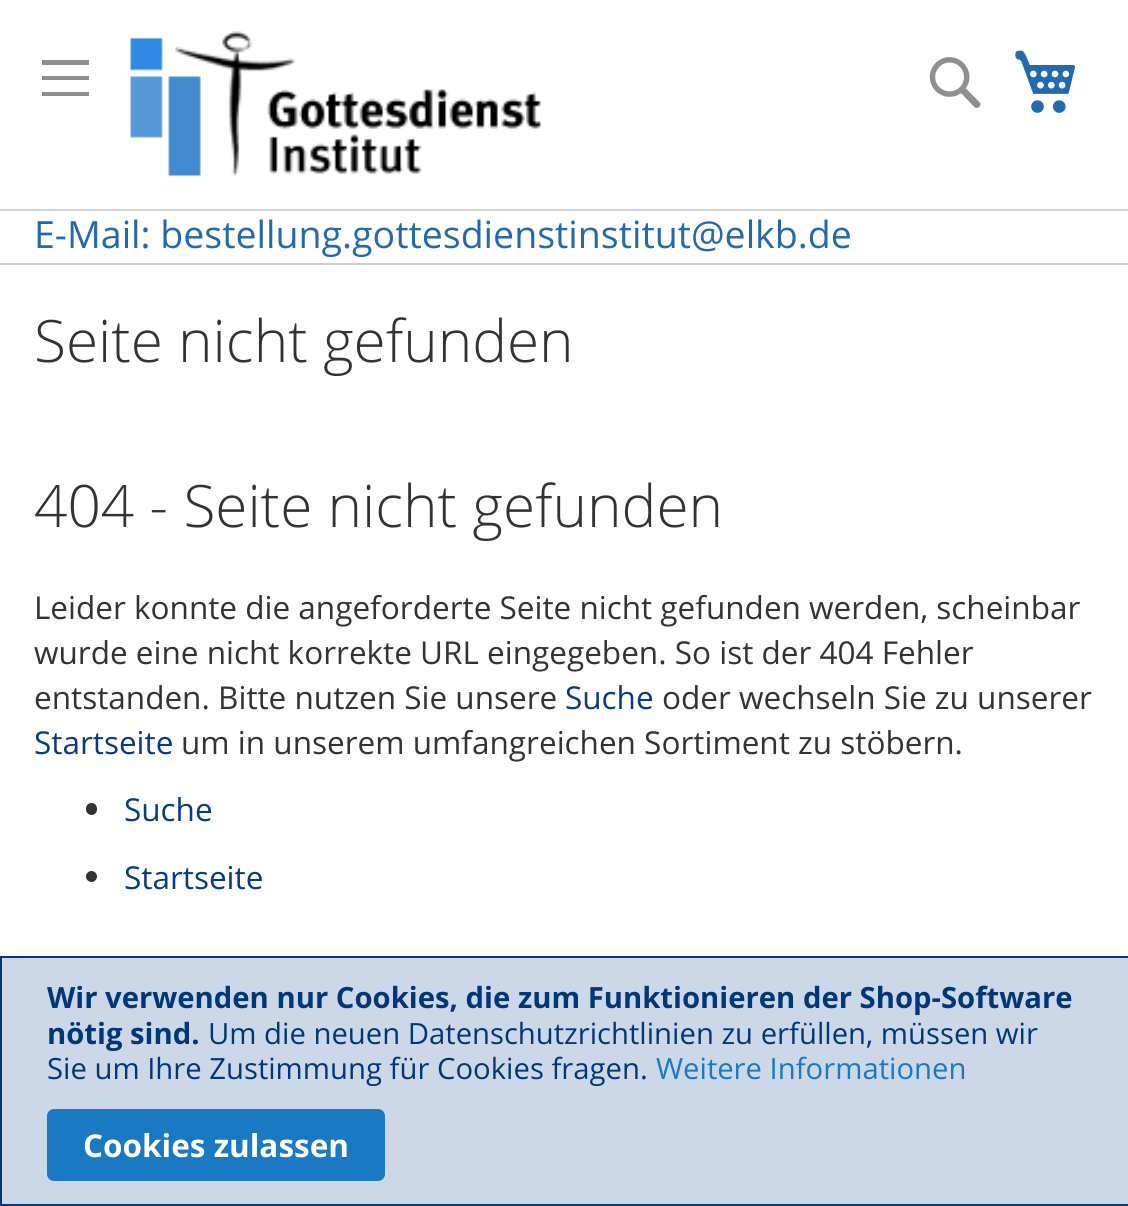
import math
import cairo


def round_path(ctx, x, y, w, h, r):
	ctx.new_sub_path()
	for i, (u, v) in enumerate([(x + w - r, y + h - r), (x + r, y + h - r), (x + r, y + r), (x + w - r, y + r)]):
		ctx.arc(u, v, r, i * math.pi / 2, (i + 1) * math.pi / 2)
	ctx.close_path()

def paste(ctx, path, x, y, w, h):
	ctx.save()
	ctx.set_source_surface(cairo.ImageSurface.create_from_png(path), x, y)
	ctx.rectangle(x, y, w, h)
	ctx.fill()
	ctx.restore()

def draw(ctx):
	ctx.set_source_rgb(1, 1, 1)
	ctx.paint()
	ctx.set_source_rgb(0.82, 0.82, 0.82)
	ctx.rectangle(0, 263, 1128, 2)
	ctx.fill()
	paste(ctx, 'media/1.png', 130, 31, 413, 146)
	paste(ctx, 'media/2.png', 1015, 50, 60, 63)
	paste(ctx, 'media/3.png', 929, 57, 52, 51)
	ctx.rectangle(0, 209, 1128, 2)
	ctx.fill()
	ctx.set_source_rgb(0.561, 0.561, 0.561)
	ctx.new_path()
	ctx.move_to(42, 60)
	ctx.line_to(42, 65)
	ctx.line_to(89, 65)
	ctx.line_to(89, 60)
	ctx.close_path()
	ctx.move_to(42, 80)
	ctx.line_to(89, 80)
	ctx.line_to(89, 76)
	ctx.line_to(42, 76)
	ctx.close_path()
	ctx.move_to(42, 96)
	ctx.line_to(89, 96)
	ctx.line_to(89, 92)
	ctx.line_to(42, 92)
	ctx.close_path()
	ctx.fill()
	ctx.select_font_face('Open Sans')
	ctx.set_font_size(37.5)
	ctx.set_source_rgb(0.137, 0.412, 0.686)
	ctx.move_to(34, 248)
	ctx.show_text('E-Mail: bestellung.gottesdienstinstitut@elkb.de')
	ctx.select_font_face('Open Sans Light')
	ctx.set_font_size(58.5)
	ctx.set_source_rgb(0.2, 0.2, 0.2)
	ctx.move_to(34, 362)
	ctx.show_text('Seite nicht gefunden')
	ctx.move_to(34, 527)
	ctx.show_text('404 - Seite nicht gefunden')
	ctx.select_font_face('Open Sans')
	ctx.set_font_size(31.5)
	for x, y, s in [
		(34, 619, 'Leider konnte die angeforderte Seite nicht gefunden werden, scheinbar'),
		(34, 664, 'wurde eine nicht korrekte URL eingegeben. So ist der 404 Fehler'),
		(34, 709, 'entstanden. Bitte nutzen Sie unsere'),
	]:
		ctx.move_to(x, y)
		ctx.show_text(s)
	ctx.set_source_rgb(0.031, 0.231, 0.51)
	ctx.move_to(565, 709)
	ctx.show_text('Suche')
	ctx.set_source_rgb(0.2, 0.2, 0.2)
	ctx.move_to(662, 709)
	ctx.show_text('oder wechseln Sie zu unserer')
	ctx.set_source_rgb(0.031, 0.231, 0.51)
	ctx.move_to(34, 754)
	ctx.show_text('Startseite')
	ctx.set_source_rgb(0.2, 0.2, 0.2)
	ctx.move_to(181, 754)
	ctx.show_text('um in unserem umfangreichen Sortiment zu stöbern.')
	round_path(ctx, 86, 803, 11, 12, 5.5)
	ctx.fill()
	ctx.set_source_rgb(0.031, 0.231, 0.51)
	ctx.move_to(124, 821)
	ctx.show_text('Suche')
	ctx.set_source_rgb(0.2, 0.2, 0.2)
	ctx.new_path()
	ctx.arc(91.5, 876.5, 5.5, 0, 2 * math.pi)
	ctx.fill()
	ctx.set_source_rgb(0.031, 0.231, 0.51)
	ctx.move_to(124, 889)
	ctx.show_text('Startseite')
	ctx.set_source_rgb(0.8, 0.847, 0.906)
	ctx.rectangle(1, 957, 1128, 248)
	ctx.fill_preserve()
	ctx.set_source_rgb(0, 0.216, 0.471)
	ctx.stroke()
	ctx.select_font_face('Open Sans', cairo.FONT_SLANT_NORMAL, cairo.FONT_WEIGHT_BOLD)
	ctx.set_font_size(29.25)
	ctx.move_to(47, 1008)
	ctx.show_text('Wir verwenden nur Cookies, die zum Funktionieren der Shop-Software')
	ctx.move_to(47, 1044)
	ctx.show_text('nötig sind.')
	ctx.select_font_face('Open Sans')
	ctx.move_to(208, 1044)
	ctx.show_text('Um die neuen Datenschutzrichtlinien zu erfüllen, müssen wir')
	ctx.move_to(47, 1079)
	ctx.show_text('Sie um Ihre Zustimmung für Cookies fragen.')
	ctx.set_source_rgb(0.098, 0.475, 0.765)
	ctx.move_to(656, 1079)
	ctx.show_text('Weitere Informationen')
	round_path(ctx, 48, 1110, 336, 70, 6)
	ctx.fill_preserve()
	ctx.stroke()
	ctx.select_font_face('Open Sans', cairo.FONT_SLANT_NORMAL, cairo.FONT_WEIGHT_BOLD)
	ctx.set_font_size(31.5)
	ctx.set_source_rgb(1, 1, 1)
	ctx.move_to(83, 1157)
	ctx.show_text('Cookies zulassen')


surface = cairo.ImageSurface(cairo.FORMAT_RGB24, 1128, 1206)
ctx = cairo.Context(surface)
options = cairo.FontOptions()
options.set_hint_metrics(cairo.HINT_METRICS_OFF)
options.set_hint_style(cairo.HINT_STYLE_NONE)
ctx.set_font_options(options)
ctx.set_miter_limit(4)
draw(ctx)
surface.write_to_png('image.png')
